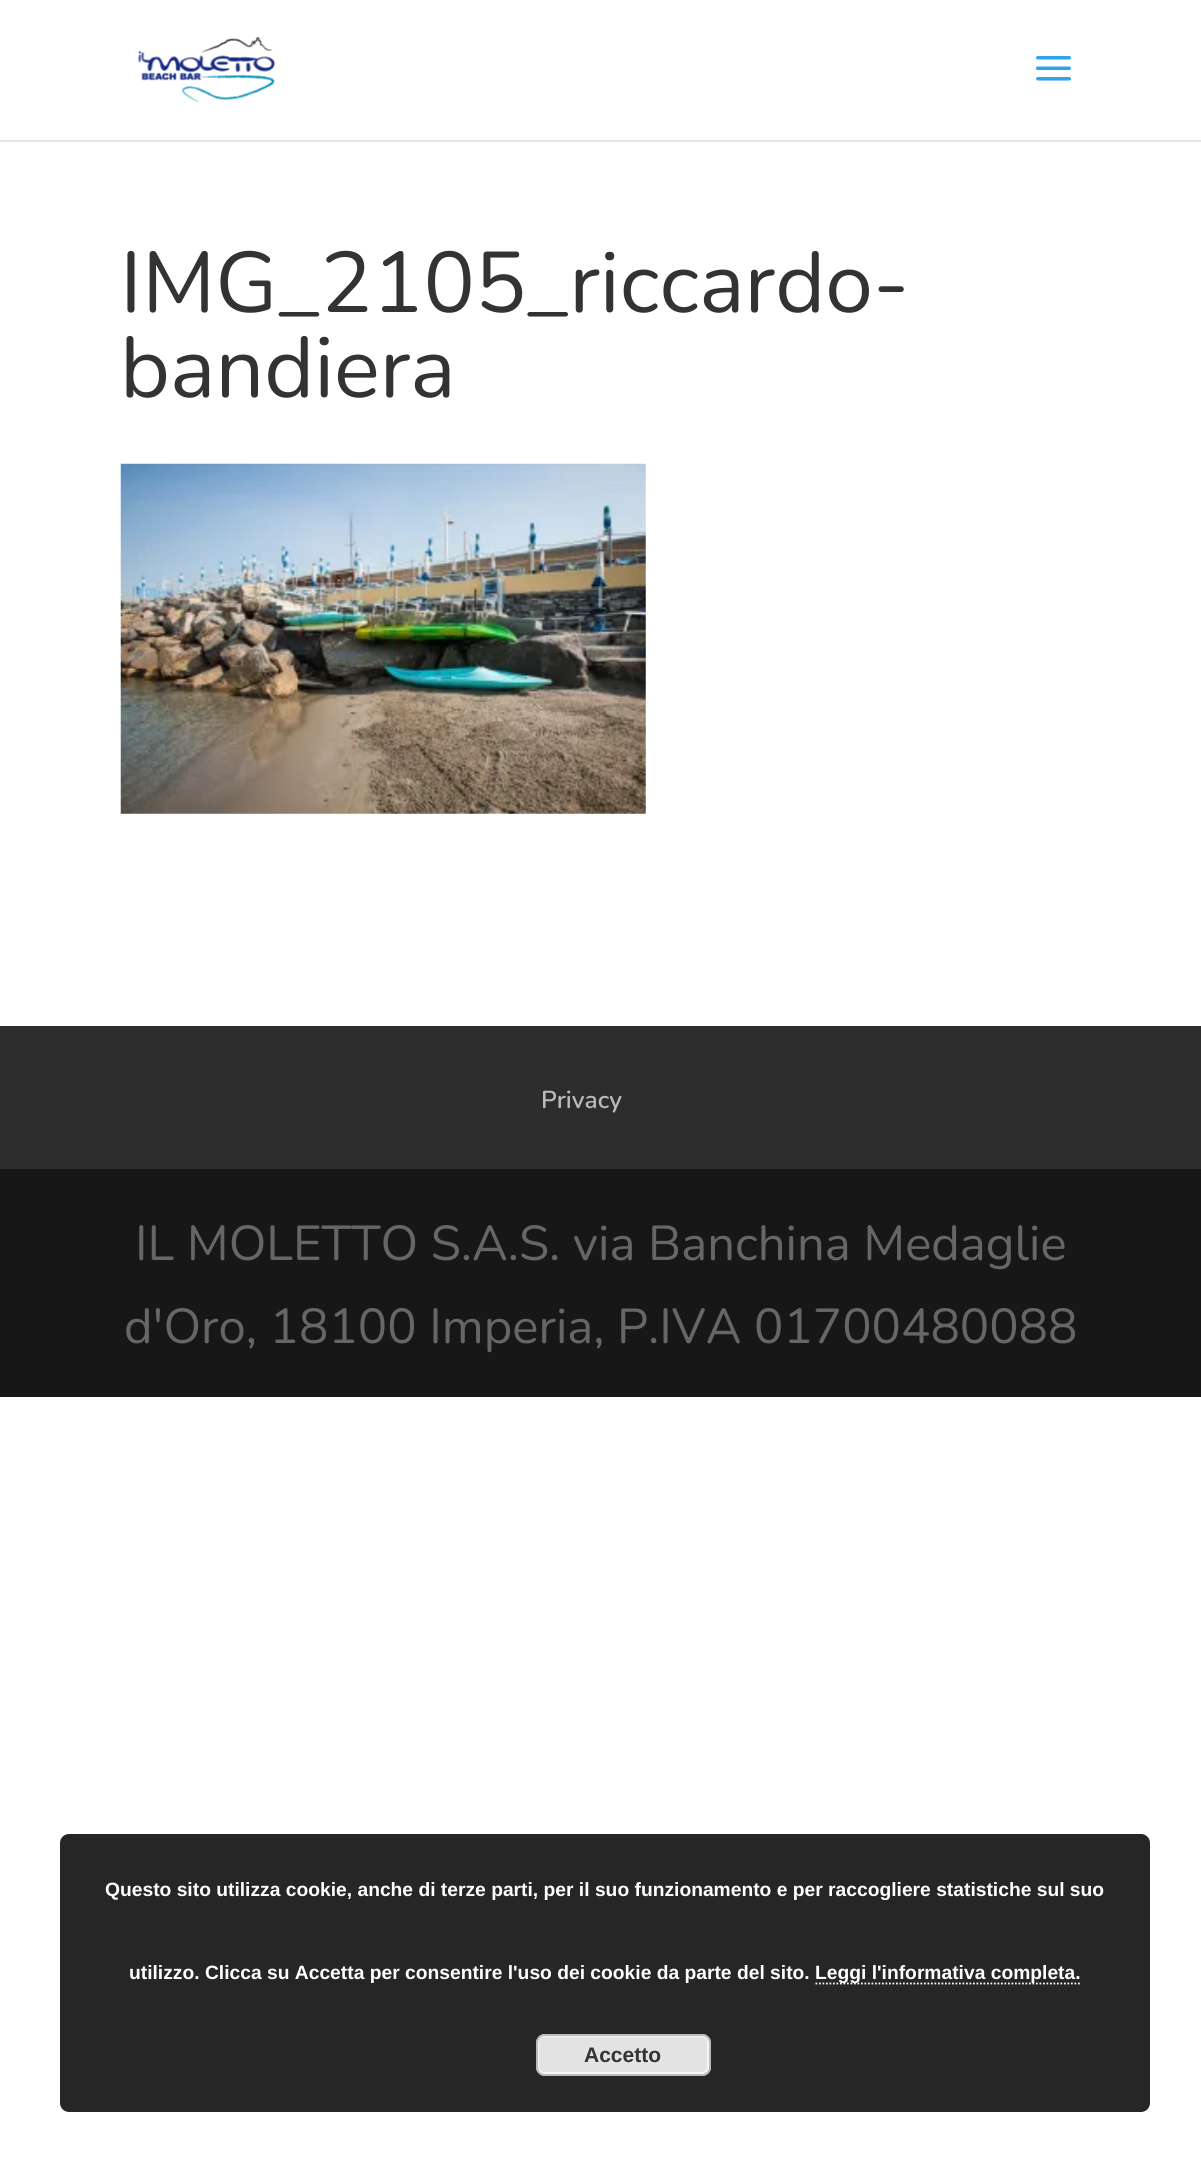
import math
import cairo


def round_path(ctx, x, y, w, h, r):
	ctx.new_sub_path()
	for i, (u, v) in enumerate([(x + w - r, y + h - r), (x + r, y + h - r), (x + r, y + r), (x + w - r, y + r)]):
		ctx.arc(u, v, r, i * math.pi / 2, (i + 1) * math.pi / 2)
	ctx.close_path()

def paste(ctx, path, x, y, w, h):
	ctx.save()
	ctx.set_source_surface(cairo.ImageSurface.create_from_png(path), x, y)
	ctx.rectangle(x, y, w, h)
	ctx.fill()
	ctx.restore()

def draw(ctx):
	ctx.set_source_rgb(1, 1, 1)
	ctx.paint()
	ctx.set_source_rgb(0.902, 0.902, 0.902)
	ctx.rectangle(0, 140, 1201, 2)
	ctx.fill()
	paste(ctx, 'media/1.png', 137, 36, 139, 67)
	paste(ctx, 'media/2.png', 1036, 56, 35, 25)
	ctx.select_font_face('Nunito')
	ctx.set_font_size(85.75)
	ctx.set_source_rgb(0.2, 0.2, 0.2)
	ctx.move_to(120, 312)
	ctx.show_text('IMG_2105_riccardo-')
	ctx.move_to(120, 397)
	ctx.show_text('bandiera')
	paste(ctx, 'media/3.png', 120, 463, 526, 351)
	ctx.set_source_rgb(0.176, 0.176, 0.176)
	ctx.rectangle(0, 1026, 1201, 143)
	ctx.fill()
	ctx.select_font_face('Nunito SemiBold')
	ctx.set_font_size(24.5)
	ctx.set_source_rgb(0.733, 0.733, 0.733)
	ctx.move_to(541, 1108)
	ctx.show_text('Privacy')
	ctx.set_source_rgb(0.09, 0.09, 0.09)
	ctx.rectangle(0, 1169, 1201, 228)
	ctx.fill()
	ctx.select_font_face('Nunito')
	ctx.set_font_size(49)
	ctx.set_source_rgb(0.4, 0.4, 0.4)
	ctx.move_to(135, 1260)
	ctx.show_text('IL MOLETTO S.A.S. via Banchina Medaglie')
	ctx.move_to(124, 1343)
	ctx.show_text('d\'Oro, 18100 Imperia, P.IVA 01700480088')
	ctx.set_source_rgb(0.149, 0.149, 0.149)
	round_path(ctx, 60, 1834, 1090, 278, 9)
	ctx.fill()
	ctx.select_font_face('Liberation Sans', cairo.FONT_SLANT_NORMAL, cairo.FONT_WEIGHT_BOLD)
	ctx.set_font_size(19.25)
	ctx.set_source_rgb(1, 1, 1)
	ctx.move_to(105, 1896)
	ctx.show_text('Questo sito utilizza cookie, anche di terze parti, per il suo funzionamento e per raccogliere statistiche sul suo')
	ctx.move_to(129, 1979)
	ctx.show_text('utilizzo. Clicca su Accetta per consentire l\'uso dei cookie da parte del sito.')
	ctx.new_path()
	ctx.move_to(815.5, 1983.5)
	ctx.line_to(1081.5, 1983.5)
	ctx.set_line_width(1.8)
	ctx.set_dash([1.75, 1.75])
	ctx.stroke()
	ctx.move_to(815, 1979)
	ctx.show_text('Leggi l\'informativa completa.')
	ctx.set_source_rgb(0.89, 0.89, 0.89)
	round_path(ctx, 536, 2034, 175, 42, 9)
	ctx.fill()
	round_path(ctx, 538, 2036, 170, 37, 6)
	ctx.set_source_rgb(0.965, 0.965, 0.965)
	ctx.set_line_width(2)
	ctx.set_dash([])
	ctx.stroke()
	round_path(ctx, 537, 2035, 173, 40, 8)
	ctx.set_source_rgb(0.733, 0.733, 0.733)
	ctx.stroke()
	ctx.set_font_size(21)
	ctx.set_source_rgb(0.2, 0.2, 0.2)
	ctx.move_to(584, 2062)
	ctx.show_text('Accetto')


surface = cairo.ImageSurface(cairo.FORMAT_RGB24, 1201, 2164)
ctx = cairo.Context(surface)
options = cairo.FontOptions()
options.set_hint_metrics(cairo.HINT_METRICS_OFF)
options.set_hint_style(cairo.HINT_STYLE_NONE)
ctx.set_font_options(options)
ctx.set_miter_limit(4)
draw(ctx)
surface.write_to_png('image.png')
